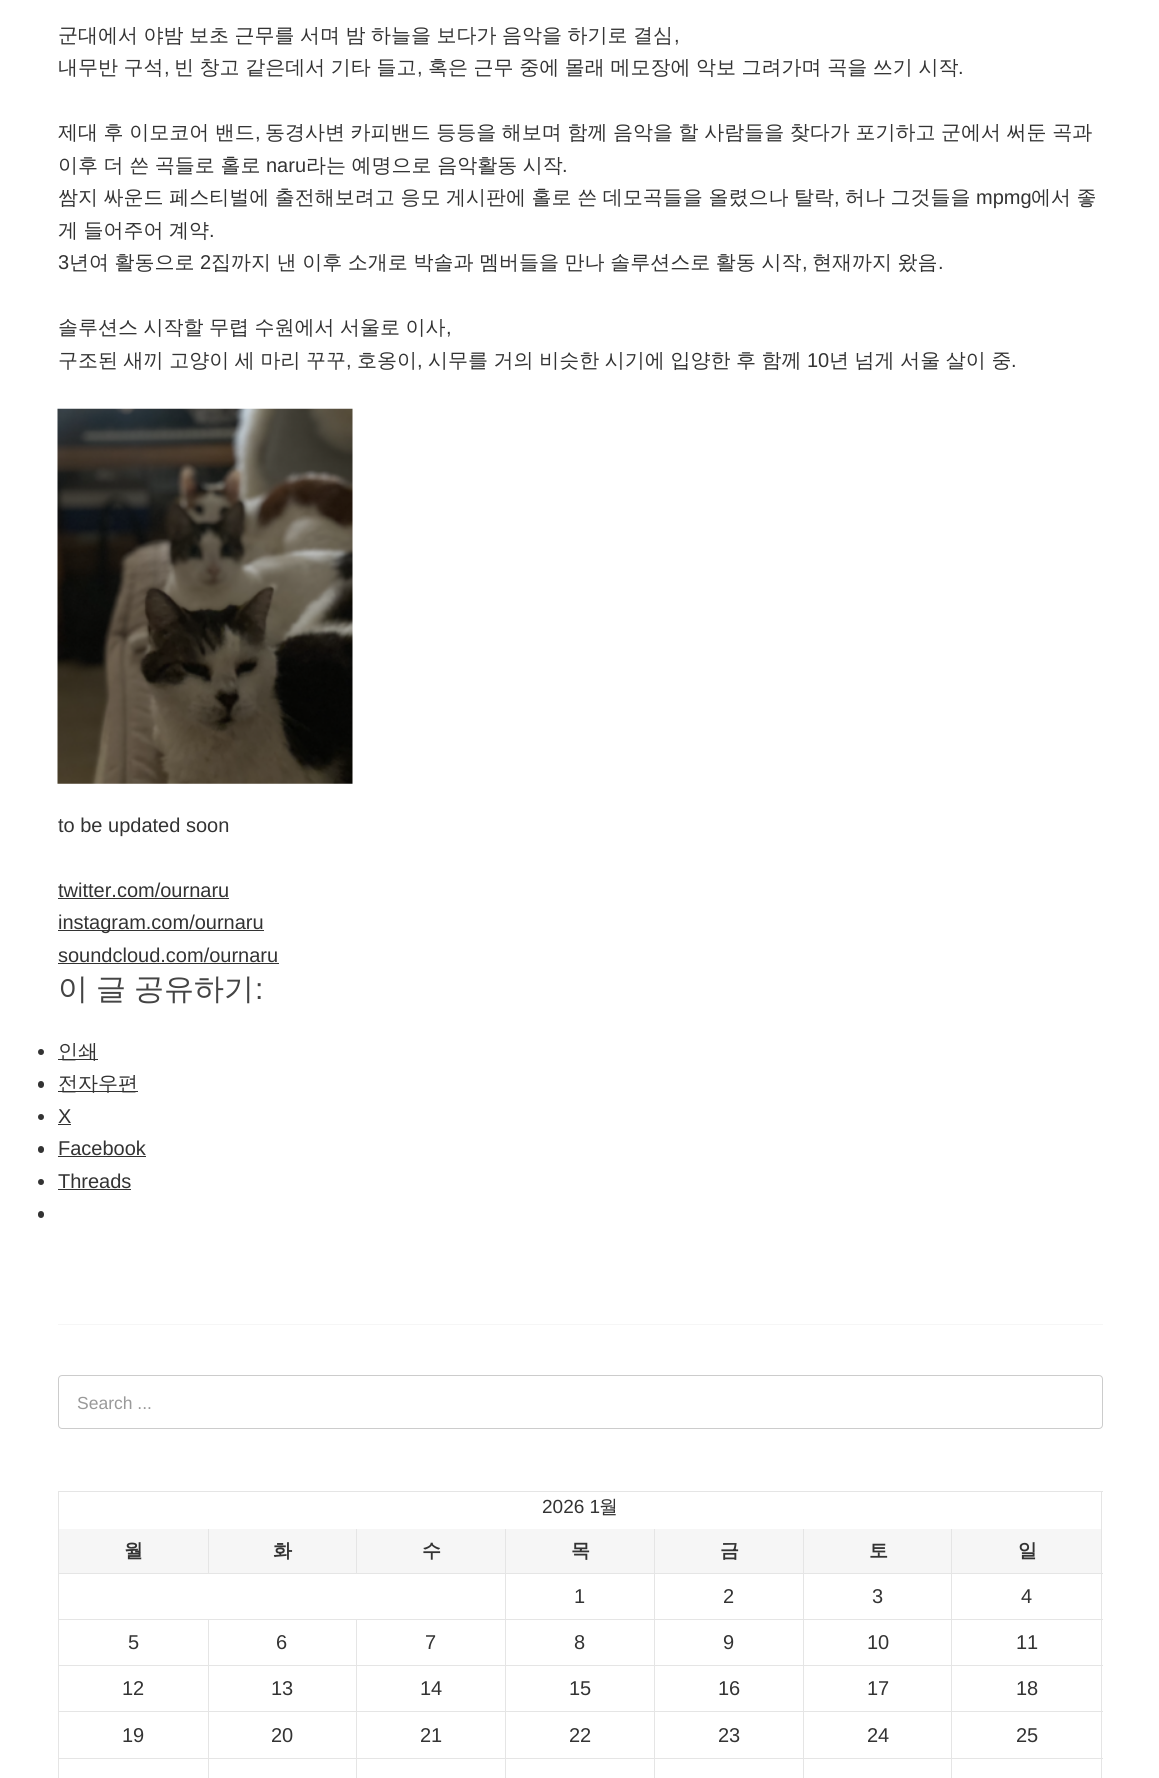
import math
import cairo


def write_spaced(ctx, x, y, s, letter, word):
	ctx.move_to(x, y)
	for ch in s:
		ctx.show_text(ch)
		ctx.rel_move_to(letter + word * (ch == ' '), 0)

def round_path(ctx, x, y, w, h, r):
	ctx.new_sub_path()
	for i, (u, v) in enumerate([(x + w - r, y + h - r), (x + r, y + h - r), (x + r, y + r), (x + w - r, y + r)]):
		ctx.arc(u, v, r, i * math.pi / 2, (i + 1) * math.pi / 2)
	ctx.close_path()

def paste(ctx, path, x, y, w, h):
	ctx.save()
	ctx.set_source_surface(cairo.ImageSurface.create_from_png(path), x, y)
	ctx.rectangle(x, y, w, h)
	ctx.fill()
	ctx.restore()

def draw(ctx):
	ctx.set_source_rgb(1, 1, 1)
	ctx.paint()
	ctx.select_font_face('WenQuanYi Zen Hei Medium')
	ctx.set_font_size(20)
	ctx.set_source_rgb(0.2, 0.2, 0.2)
	write_spaced(ctx, 58, 42, '군대에서 야밤 보초 근무를 서며 밤 하늘을 보다가 음악을 하기로 결심', 0, -0.5)
	ctx.select_font_face('Liberation Sans')
	ctx.move_to(674, 42)
	ctx.show_text(',')
	ctx.select_font_face('WenQuanYi Zen Hei Medium')
	write_spaced(ctx, 58, 74, '내무반 구석', 0, -0.4)
	ctx.select_font_face('Liberation Sans')
	ctx.move_to(164, 74)
	ctx.show_text(',')
	ctx.select_font_face('WenQuanYi Zen Hei Medium')
	write_spaced(ctx, 174, 74, '빈 창고 같은데서 기타 들고', 0, -0.4)
	ctx.select_font_face('Liberation Sans')
	ctx.move_to(417, 74)
	ctx.show_text(',')
	ctx.select_font_face('WenQuanYi Zen Hei Medium')
	write_spaced(ctx, 428, 74, '혹은 근무 중에 몰래 메모장에 악보 그려가며 곡을 쓰기 시작', 0, -0.4)
	ctx.select_font_face('Liberation Sans')
	ctx.move_to(958, 74)
	ctx.show_text('.')
	ctx.select_font_face('WenQuanYi Zen Hei Medium')
	write_spaced(ctx, 58, 139, '제대 후 이모코어 밴드', 0, -0.4)
	ctx.select_font_face('Liberation Sans')
	ctx.move_to(255, 139)
	ctx.show_text(',')
	ctx.select_font_face('WenQuanYi Zen Hei Medium')
	write_spaced(ctx, 265, 139, '동경사변 카피밴드 등등을 해보며 함께 음악을 할 사람들을 찾다가 포기하고 군에서 써둔 곡과', 0, -0.4)
	write_spaced(ctx, 58, 172, '이후 더 쓴 곡들로 홀로', 0, -0.4)
	ctx.select_font_face('Liberation Sans')
	ctx.move_to(266, 172)
	ctx.show_text('naru')
	ctx.select_font_face('WenQuanYi Zen Hei Medium')
	write_spaced(ctx, 306, 172, '라는 예명으로 음악활동 시작', 0, -0.4)
	ctx.select_font_face('Liberation Sans')
	ctx.move_to(562, 172)
	ctx.show_text('.')
	ctx.select_font_face('WenQuanYi Zen Hei Medium')
	write_spaced(ctx, 58, 204, '쌈지 싸운드 페스티벌에 출전해보려고 응모 게시판에 홀로 쓴 데모곡들을 올렸으나 탈락', 0, -0.4)
	ctx.select_font_face('Liberation Sans')
	ctx.move_to(834, 204)
	ctx.show_text(',')
	ctx.select_font_face('WenQuanYi Zen Hei Medium')
	write_spaced(ctx, 845, 204, '허나 그것들을', 0, -0.4)
	ctx.select_font_face('Liberation Sans')
	ctx.move_to(976, 204)
	ctx.show_text('mpmg')
	ctx.select_font_face('WenQuanYi Zen Hei Medium')
	write_spaced(ctx, 1031, 204, '에서 좋', 0, -0.4)
	write_spaced(ctx, 58, 237, '게 들어주어 계약', 0, -0.5)
	ctx.select_font_face('Liberation Sans')
	ctx.move_to(209, 237)
	ctx.show_text('.')
	ctx.move_to(58, 269)
	ctx.show_text('3')
	ctx.select_font_face('WenQuanYi Zen Hei Medium')
	write_spaced(ctx, 69, 269, '년여 활동으로', 0, -0.4)
	ctx.select_font_face('Liberation Sans')
	ctx.move_to(200, 269)
	ctx.show_text('2')
	ctx.select_font_face('WenQuanYi Zen Hei Medium')
	write_spaced(ctx, 211, 269, '집까지 낸 이후 소개로 박솔과 멤버들을 만나 솔루션스로 활동 시작', 0, -0.4)
	ctx.select_font_face('Liberation Sans')
	ctx.move_to(802, 269)
	ctx.show_text(',')
	ctx.select_font_face('WenQuanYi Zen Hei Medium')
	write_spaced(ctx, 812, 269, '현재까지 왔음', 0, -0.4)
	ctx.select_font_face('Liberation Sans')
	ctx.move_to(938, 269)
	ctx.show_text('.')
	ctx.select_font_face('WenQuanYi Zen Hei Medium')
	write_spaced(ctx, 58, 334, '솔루션스 시작할 무렵 수원에서 서울로 이사', 0, -0.5)
	ctx.select_font_face('Liberation Sans')
	ctx.move_to(446, 334)
	ctx.show_text(',')
	ctx.select_font_face('WenQuanYi Zen Hei Medium')
	write_spaced(ctx, 58, 367, '구조된 새끼 고양이 세 마리 꾸꾸', 0, -0.4)
	ctx.select_font_face('Liberation Sans')
	ctx.move_to(346, 367)
	ctx.show_text(',')
	ctx.select_font_face('WenQuanYi Zen Hei Medium')
	ctx.move_to(357, 367)
	ctx.show_text('호옹이')
	ctx.select_font_face('Liberation Sans')
	ctx.move_to(417, 367)
	ctx.show_text(',')
	ctx.select_font_face('WenQuanYi Zen Hei Medium')
	write_spaced(ctx, 428, 367, '시무를 거의 비슷한 시기에 입양한 후 함께', 0, -0.4)
	ctx.select_font_face('Liberation Sans')
	ctx.move_to(807, 367)
	ctx.show_text('10')
	ctx.select_font_face('WenQuanYi Zen Hei Medium')
	write_spaced(ctx, 829, 367, '년 넘게 서울 살이 중', 0, -0.4)
	ctx.select_font_face('Liberation Sans')
	ctx.move_to(1011, 367)
	ctx.show_text('.')
	paste(ctx, 'media/1.png', 57, 408, 296, 376)
	ctx.move_to(58, 832)
	ctx.show_text('to be updated soon')
	ctx.move_to(58, 897)
	ctx.show_text('twitter.com/ournaru')
	ctx.rectangle(58, 898, 171, 1)
	ctx.fill()
	ctx.rectangle(58, 930, 206, 1)
	ctx.fill()
	ctx.move_to(58, 929)
	ctx.show_text('instagram.com/ournaru')
	ctx.move_to(58, 962)
	ctx.show_text('soundcloud.com/ournaru')
	ctx.rectangle(58, 963, 221, 1)
	ctx.fill()
	ctx.select_font_face('WenQuanYi Zen Hei Medium')
	ctx.set_font_size(30)
	ctx.set_source_rgb(0.267, 0.267, 0.267)
	write_spaced(ctx, 58, 999, '이 글 공유하기', 0, -1)
	ctx.select_font_face('Liberation Sans')
	ctx.move_to(255, 999)
	ctx.show_text(':')
	ctx.set_source_rgb(0.2, 0.2, 0.2)
	ctx.new_path()
	ctx.arc(41, 1052, 3, 0, 2 * math.pi)
	ctx.fill()
	ctx.rectangle(58, 1059, 40, 1)
	ctx.fill()
	ctx.select_font_face('WenQuanYi Zen Hei Medium')
	ctx.set_font_size(20)
	ctx.move_to(58, 1058)
	ctx.show_text('인쇄')
	round_path(ctx, 38, 1081, 6, 7, 3)
	ctx.fill()
	ctx.rectangle(58, 1091, 80, 1)
	ctx.fill()
	ctx.move_to(58, 1090)
	ctx.show_text('전자우편')
	ctx.new_path()
	ctx.arc(41, 1117, 3, 0, 2 * math.pi)
	ctx.fill()
	ctx.select_font_face('Liberation Sans')
	ctx.move_to(58, 1123)
	ctx.show_text('X')
	ctx.rectangle(58, 1124, 13, 1)
	ctx.fill()
	round_path(ctx, 38, 1146, 6, 7, 3)
	ctx.fill()
	ctx.move_to(58, 1155)
	ctx.show_text('Facebook')
	ctx.rectangle(58, 1156, 88, 1)
	ctx.fill()
	ctx.arc(41, 1182, 3, 0, 2 * math.pi)
	ctx.fill()
	ctx.move_to(58, 1188)
	ctx.show_text('Threads')
	ctx.rectangle(58, 1189, 73, 1)
	ctx.fill()
	round_path(ctx, 38, 1211, 6, 7, 3)
	ctx.fill()
	ctx.set_source_rgb(0.961, 0.961, 0.961)
	ctx.rectangle(58, 1324, 1045, 1)
	ctx.fill()
	round_path(ctx, 58.5, 1375.5, 1044, 53, 3.5)
	ctx.set_source_rgb(0.8, 0.8, 0.8)
	ctx.set_line_width(1)
	ctx.stroke()
	ctx.set_font_size(17.5)
	ctx.set_source_rgb(0.6, 0.6, 0.6)
	ctx.move_to(77, 1409)
	ctx.show_text('Search ...')
	ctx.set_source_rgb(0.898, 0.898, 0.898)
	ctx.rectangle(58, 1491, 1045, 1)
	ctx.rectangle(1101, 1491, 1, 287)
	ctx.rectangle(58, 1491, 1, 287)
	ctx.fill()
	ctx.set_font_size(19)
	ctx.set_source_rgb(0.2, 0.2, 0.2)
	ctx.move_to(542, 1513)
	ctx.show_text('2026 1')
	ctx.select_font_face('WenQuanYi Zen Hei Medium')
	ctx.move_to(599, 1513)
	ctx.show_text('월')
	ctx.set_source_rgb(0.961, 0.961, 0.961)
	ctx.rectangle(59, 1529, 149, 44)
	ctx.rectangle(804, 1529, 297, 44)
	ctx.fill()
	ctx.set_source_rgb(0.898, 0.898, 0.898)
	ctx.rectangle(951, 1758, 1, 20)
	ctx.rectangle(951, 1758, 152, 1)
	ctx.rectangle(951, 1711, 1, 48)
	ctx.rectangle(951, 1711, 152, 1)
	ctx.rectangle(951, 1665, 1, 48)
	ctx.rectangle(951, 1665, 152, 1)
	ctx.rectangle(951, 1619, 1, 47)
	ctx.rectangle(951, 1619, 152, 1)
	ctx.rectangle(951, 1573, 1, 47)
	ctx.rectangle(951, 1573, 152, 1)
	ctx.rectangle(951, 1529, 1, 45)
	ctx.rectangle(803, 1758, 1, 20)
	ctx.rectangle(803, 1758, 150, 1)
	ctx.rectangle(803, 1711, 1, 48)
	ctx.rectangle(803, 1711, 150, 1)
	ctx.rectangle(803, 1665, 1, 48)
	ctx.rectangle(803, 1665, 150, 1)
	ctx.rectangle(803, 1619, 1, 47)
	ctx.rectangle(803, 1619, 150, 1)
	ctx.rectangle(803, 1573, 1, 47)
	ctx.rectangle(803, 1573, 150, 1)
	ctx.rectangle(803, 1529, 1, 45)
	ctx.rectangle(654, 1758, 1, 20)
	ctx.rectangle(654, 1758, 150, 1)
	ctx.rectangle(654, 1711, 1, 48)
	ctx.rectangle(654, 1711, 150, 1)
	ctx.rectangle(654, 1665, 1, 48)
	ctx.rectangle(654, 1665, 150, 1)
	ctx.rectangle(654, 1619, 1, 47)
	ctx.rectangle(654, 1619, 150, 1)
	ctx.rectangle(654, 1573, 1, 47)
	ctx.rectangle(654, 1573, 150, 1)
	ctx.rectangle(654, 1529, 1, 45)
	ctx.rectangle(505, 1758, 1, 20)
	ctx.rectangle(505, 1758, 150, 1)
	ctx.rectangle(505, 1711, 1, 48)
	ctx.rectangle(505, 1711, 150, 1)
	ctx.rectangle(505, 1665, 1, 48)
	ctx.rectangle(505, 1665, 150, 1)
	ctx.rectangle(505, 1619, 1, 47)
	ctx.rectangle(505, 1619, 150, 1)
	ctx.rectangle(505, 1573, 1, 47)
	ctx.rectangle(505, 1573, 150, 1)
	ctx.rectangle(505, 1529, 1, 45)
	ctx.rectangle(356, 1573, 150, 1)
	ctx.rectangle(356, 1529, 1, 45)
	ctx.rectangle(208, 1573, 150, 1)
	ctx.rectangle(208, 1529, 1, 45)
	ctx.rectangle(58, 1573, 151, 1)
	ctx.fill()
	ctx.select_font_face('WenQuanYi Zen Hei', cairo.FONT_SLANT_NORMAL, cairo.FONT_WEIGHT_BOLD)
	ctx.set_source_rgb(0.2, 0.2, 0.2)
	ctx.move_to(124, 1557)
	ctx.show_text('월')
	ctx.set_source_rgb(0.961, 0.961, 0.961)
	ctx.rectangle(209, 1529, 147, 44)
	ctx.fill()
	ctx.set_source_rgb(0.2, 0.2, 0.2)
	ctx.move_to(273, 1557)
	ctx.show_text('화')
	ctx.set_source_rgb(0.961, 0.961, 0.961)
	ctx.rectangle(357, 1529, 148, 44)
	ctx.fill()
	ctx.set_source_rgb(0.2, 0.2, 0.2)
	ctx.move_to(422, 1557)
	ctx.show_text('수')
	ctx.set_source_rgb(0.961, 0.961, 0.961)
	ctx.rectangle(506, 1529, 148, 44)
	ctx.fill()
	ctx.set_source_rgb(0.2, 0.2, 0.2)
	ctx.move_to(571, 1557)
	ctx.show_text('목')
	ctx.set_source_rgb(0.961, 0.961, 0.961)
	ctx.rectangle(655, 1529, 148, 44)
	ctx.fill()
	ctx.set_source_rgb(0.2, 0.2, 0.2)
	for x, y, s in [
		(720, 1557, '금'),
		(869, 1557, '토'),
		(1018, 1557, '일'),
	]:
		ctx.move_to(x, y)
		ctx.show_text(s)
	ctx.set_source_rgb(0.898, 0.898, 0.898)
	ctx.rectangle(356, 1758, 1, 20)
	ctx.rectangle(356, 1758, 150, 1)
	ctx.rectangle(356, 1711, 1, 48)
	ctx.rectangle(356, 1711, 150, 1)
	ctx.rectangle(356, 1665, 1, 48)
	ctx.rectangle(356, 1665, 150, 1)
	ctx.rectangle(356, 1619, 1, 47)
	ctx.rectangle(208, 1758, 1, 20)
	ctx.rectangle(208, 1758, 150, 1)
	ctx.rectangle(208, 1711, 1, 48)
	ctx.rectangle(208, 1711, 150, 1)
	ctx.rectangle(208, 1665, 1, 48)
	ctx.rectangle(208, 1665, 150, 1)
	ctx.rectangle(208, 1619, 1, 47)
	ctx.rectangle(58, 1619, 448, 1)
	ctx.fill()
	ctx.select_font_face('Liberation Sans')
	ctx.set_font_size(20)
	ctx.set_source_rgb(0.2, 0.2, 0.2)
	for x, y, s in [
		(574, 1603, '1'),
		(723, 1603, '2'),
		(872, 1603, '3'),
		(1021, 1603, '4'),
	]:
		ctx.move_to(x, y)
		ctx.show_text(s)
	ctx.set_source_rgb(0.898, 0.898, 0.898)
	ctx.rectangle(58, 1665, 151, 1)
	ctx.fill()
	ctx.set_source_rgb(0.2, 0.2, 0.2)
	for x, y, s in [
		(128, 1649, '5'),
		(276, 1649, '6'),
		(425, 1649, '7'),
		(574, 1649, '8'),
		(723, 1649, '9'),
		(867, 1649, '10'),
		(1016, 1649, '11'),
	]:
		ctx.move_to(x, y)
		ctx.show_text(s)
	ctx.set_source_rgb(0.898, 0.898, 0.898)
	ctx.rectangle(58, 1711, 151, 1)
	ctx.fill()
	ctx.set_source_rgb(0.2, 0.2, 0.2)
	for x, y, s in [
		(122, 1695, '12'),
		(271, 1695, '13'),
		(420, 1695, '14'),
		(569, 1695, '15'),
		(718, 1695, '16'),
		(867, 1695, '17'),
		(1016, 1695, '18'),
	]:
		ctx.move_to(x, y)
		ctx.show_text(s)
	ctx.set_source_rgb(0.898, 0.898, 0.898)
	ctx.rectangle(58, 1758, 151, 1)
	ctx.fill()
	ctx.set_source_rgb(0.2, 0.2, 0.2)
	for x, y, s in [
		(122, 1742, '19'),
		(271, 1742, '20'),
		(420, 1742, '21'),
		(569, 1742, '22'),
		(718, 1742, '23'),
		(867, 1742, '24'),
		(1016, 1742, '25'),
	]:
		ctx.move_to(x, y)
		ctx.show_text(s)


surface = cairo.ImageSurface(cairo.FORMAT_RGB24, 1159, 1778)
ctx = cairo.Context(surface)
options = cairo.FontOptions()
options.set_hint_metrics(cairo.HINT_METRICS_OFF)
options.set_hint_style(cairo.HINT_STYLE_NONE)
ctx.set_font_options(options)
ctx.set_miter_limit(4)
draw(ctx)
surface.write_to_png('image.png')
